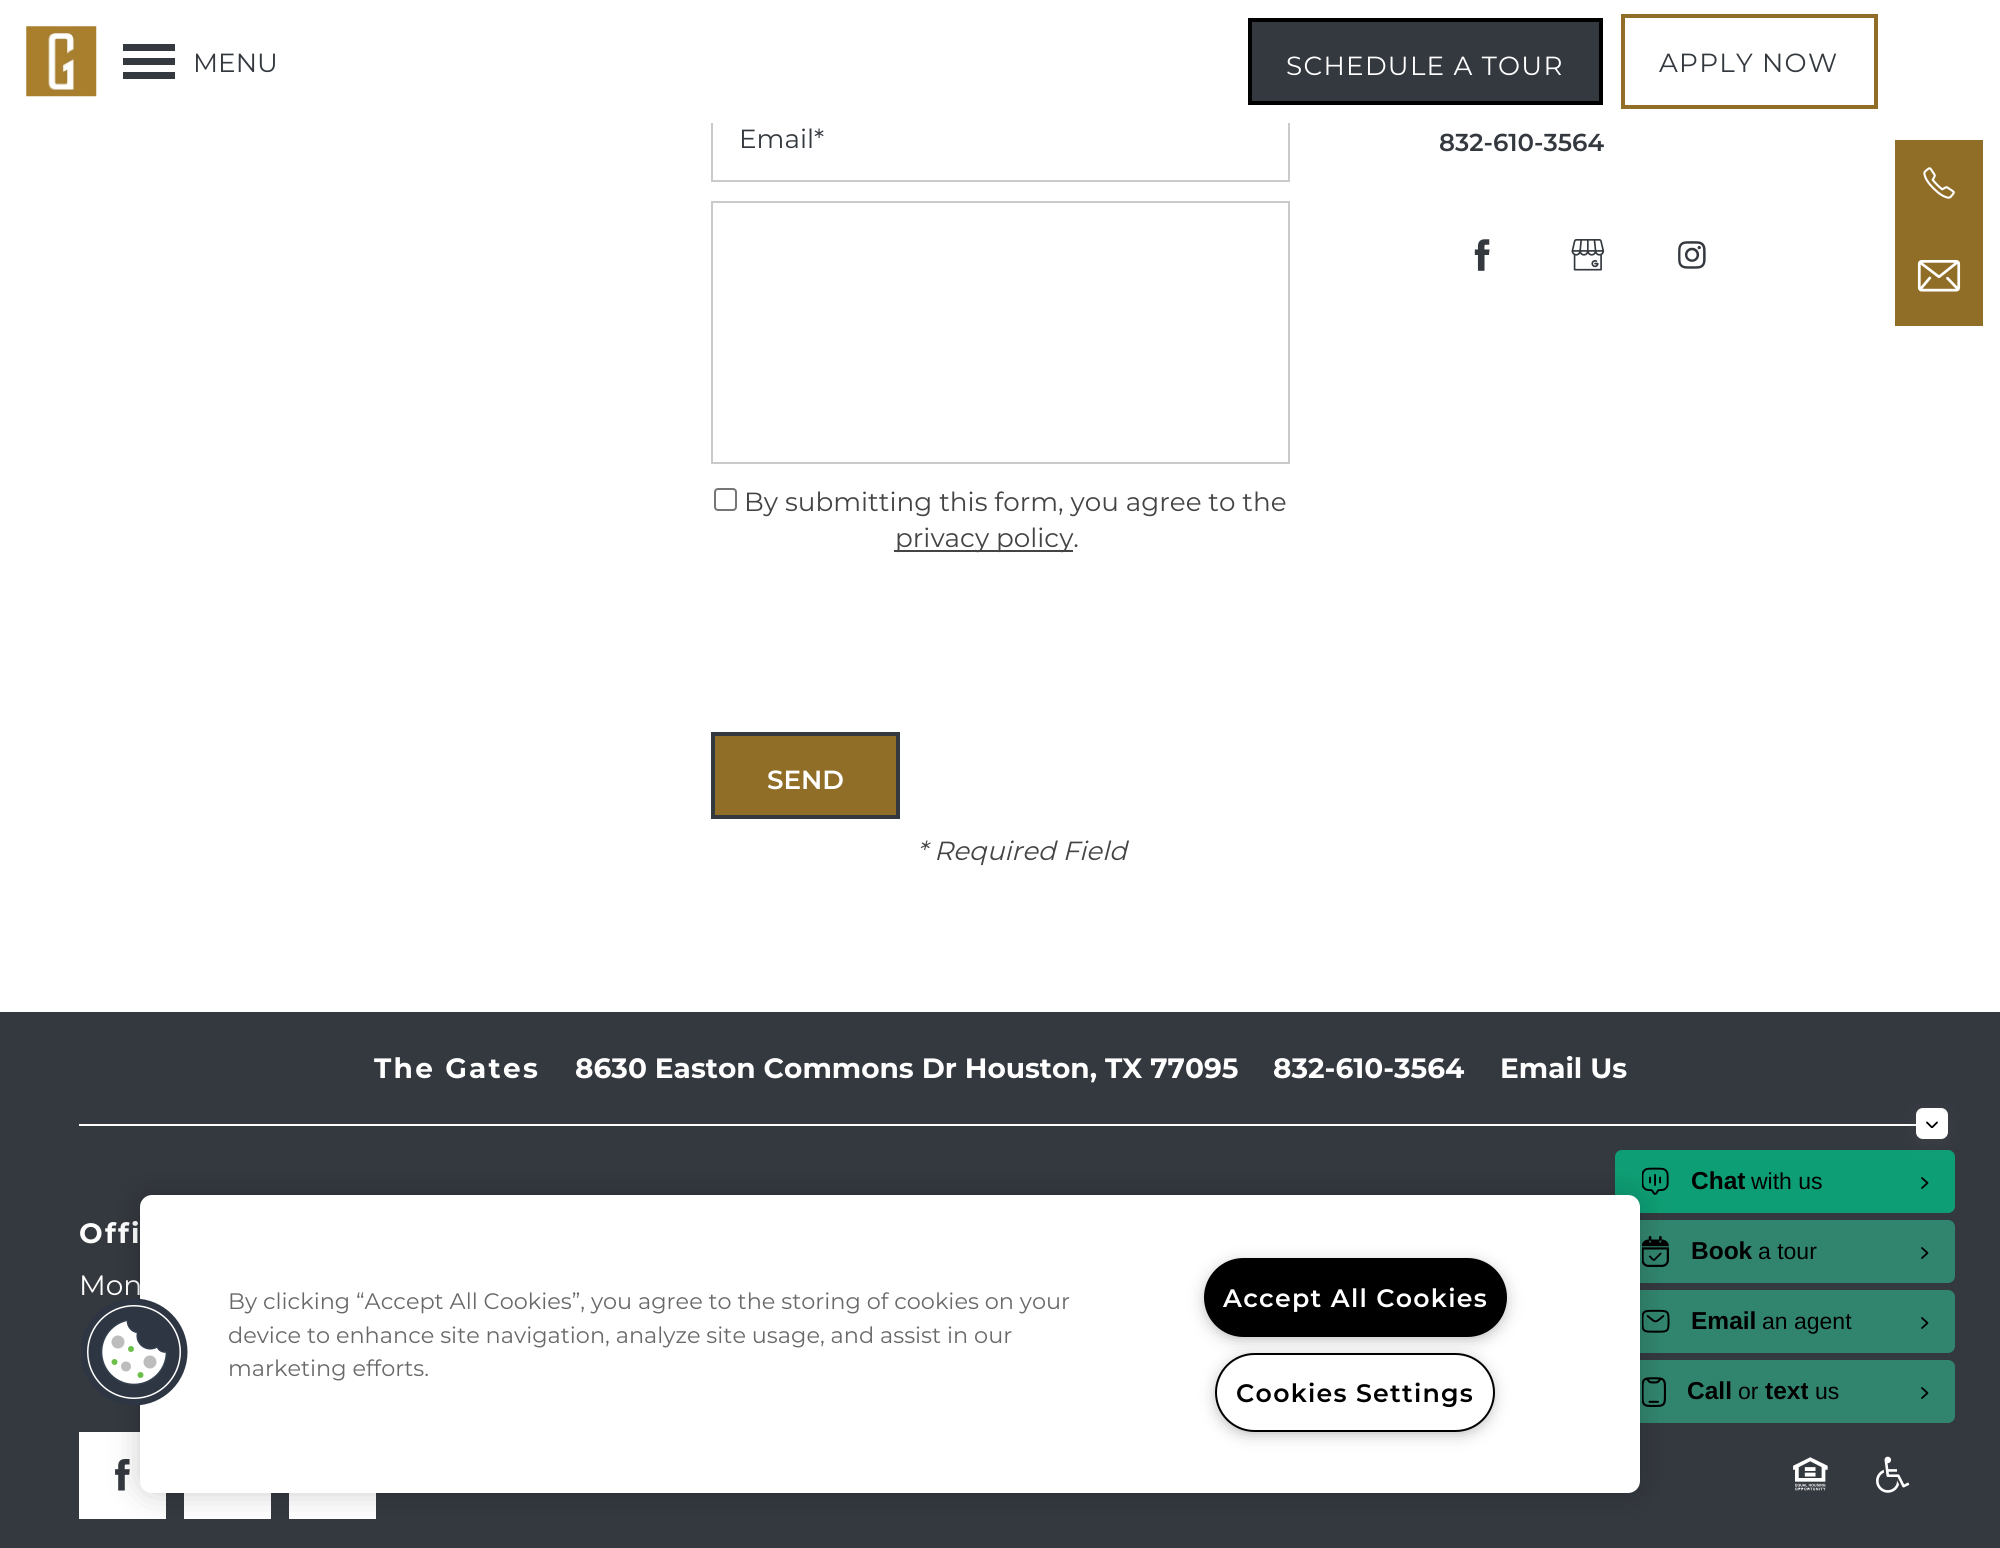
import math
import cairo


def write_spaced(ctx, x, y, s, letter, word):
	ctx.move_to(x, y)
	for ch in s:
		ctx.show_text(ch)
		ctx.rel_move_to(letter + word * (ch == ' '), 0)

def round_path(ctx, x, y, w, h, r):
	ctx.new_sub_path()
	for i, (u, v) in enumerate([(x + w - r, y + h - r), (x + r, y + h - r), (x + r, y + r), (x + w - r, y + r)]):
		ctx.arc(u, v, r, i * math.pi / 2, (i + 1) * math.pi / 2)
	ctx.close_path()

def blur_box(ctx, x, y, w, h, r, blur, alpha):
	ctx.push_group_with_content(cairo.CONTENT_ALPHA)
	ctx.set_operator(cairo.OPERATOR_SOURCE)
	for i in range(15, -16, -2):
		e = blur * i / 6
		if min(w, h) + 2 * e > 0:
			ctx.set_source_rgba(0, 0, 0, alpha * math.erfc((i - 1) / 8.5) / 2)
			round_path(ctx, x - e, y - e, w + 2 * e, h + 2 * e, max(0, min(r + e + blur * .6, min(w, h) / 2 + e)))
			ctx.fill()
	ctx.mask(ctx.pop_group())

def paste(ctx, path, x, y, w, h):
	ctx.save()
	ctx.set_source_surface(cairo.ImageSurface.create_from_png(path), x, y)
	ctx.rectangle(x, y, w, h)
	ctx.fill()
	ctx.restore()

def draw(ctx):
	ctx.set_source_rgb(1, 1, 1)
	ctx.paint()
	paste(ctx, 'media/1.png', 26, 26, 71, 71)
	ctx.rectangle(712, 96, 577, 85)
	ctx.set_source_rgb(0.792, 0.792, 0.792)
	ctx.stroke()
	ctx.set_source_rgb(1, 1, 1)
	ctx.rectangle(711, 95, 579, 28)
	ctx.fill()
	ctx.set_source_rgb(0.204, 0.224, 0.247)
	ctx.rectangle(123, 44, 52, 7)
	ctx.rectangle(123, 58, 52, 7)
	ctx.rectangle(123, 72, 52, 7)
	ctx.fill()
	ctx.select_font_face('Montserrat')
	ctx.set_font_size(26.25)
	ctx.move_to(193, 72)
	ctx.show_text('MENU')
	ctx.rectangle(1250, 20, 351, 83)
	ctx.fill_preserve()
	ctx.set_source_rgb(0, 0, 0)
	ctx.set_line_width(4)
	ctx.stroke()
	ctx.set_source_rgb(1, 1, 1)
	write_spaced(ctx, 1286, 75, 'SCHEDULE A TOUR', 1.25, 0)
	ctx.rectangle(1623, 16, 253, 91)
	ctx.set_source_rgb(0.569, 0.431, 0.153)
	ctx.stroke()
	ctx.set_source_rgb(0.204, 0.224, 0.247)
	write_spaced(ctx, 1659, 72, 'APPLY NOW', 1.25, 0)
	ctx.move_to(739, 148)
	ctx.show_text('Email*')
	ctx.rectangle(712, 202, 577, 261)
	ctx.set_source_rgb(0.792, 0.792, 0.792)
	ctx.set_line_width(2)
	ctx.stroke()
	round_path(ctx, 715, 489, 21, 21, 3)
	ctx.set_source_rgb(0.463, 0.463, 0.463)
	ctx.stroke()
	ctx.set_source_rgb(0.267, 0.267, 0.267)
	ctx.move_to(744, 511)
	ctx.show_text('By submitting this form, you agree to the')
	ctx.rectangle(894, 550, 179, 2)
	ctx.fill()
	ctx.move_to(895, 547)
	ctx.show_text('privacy policy.')
	ctx.set_source_rgb(0.569, 0.431, 0.153)
	ctx.rectangle(713, 734, 185, 83)
	ctx.fill_preserve()
	ctx.set_source_rgb(0.204, 0.224, 0.247)
	ctx.set_line_width(4)
	ctx.stroke()
	ctx.select_font_face('Montserrat SemiBold')
	ctx.set_source_rgb(1, 1, 1)
	ctx.move_to(767, 789)
	ctx.show_text('SEND')
	ctx.select_font_face('Montserrat', cairo.FONT_SLANT_ITALIC)
	ctx.set_source_rgb(0.267, 0.267, 0.267)
	ctx.move_to(917, 860)
	ctx.show_text('* Required Field')
	ctx.select_font_face('Montserrat SemiBold')
	ctx.set_font_size(24.5)
	ctx.set_source_rgb(0.204, 0.224, 0.247)
	ctx.move_to(1439, 151)
	ctx.show_text('832-610-3564')
	paste(ctx, 'media/2.png', 1474, 239, 16, 32)
	paste(ctx, 'media/3.png', 1571, 239, 34, 32)
	paste(ctx, 'media/4.png', 1678, 241, 28, 28)
	ctx.set_source_rgb(0.569, 0.431, 0.153)
	ctx.rectangle(1895, 140, 88, 186)
	ctx.fill()
	paste(ctx, 'media/5.png', 1923, 167, 32, 32)
	paste(ctx, 'media/6.png', 1917, 260, 44, 32)
	ctx.set_source_rgb(0.204, 0.224, 0.247)
	ctx.rectangle(0, 1012, 2000, 536)
	ctx.fill()
	ctx.set_source_rgb(1, 1, 1)
	ctx.rectangle(79, 1124, 1843, 2)
	ctx.fill()
	ctx.select_font_face('Montserrat', cairo.FONT_SLANT_NORMAL, cairo.FONT_WEIGHT_BOLD)
	ctx.set_font_size(28)
	write_spaced(ctx, 374, 1078, 'The Gates', 2.25, 0)
	for x, y, s in [
		(575, 1078, '8630 Easton Commons Dr Houston, TX 77095'),
		(1273, 1078, '832-610-3564'),
		(1500, 1078, 'Email Us'),
	]:
		ctx.move_to(x, y)
		ctx.show_text(s)
	write_spaced(ctx, 79, 1243, 'Offi', 2.25, 0)
	ctx.select_font_face('Montserrat')
	ctx.move_to(79, 1295)
	ctx.show_text('Mon')
	ctx.rectangle(79, 1432, 87, 87)
	ctx.fill()
	paste(ctx, 'media/7.png', 115, 1459, 15, 32)
	ctx.rectangle(184, 1493, 87, 26)
	ctx.fill()
	ctx.rectangle(289, 1493, 87, 26)
	ctx.fill()
	paste(ctx, 'media/8.png', 1793, 1457, 35, 34)
	paste(ctx, 'media/9.png', 1876, 1456, 34, 37)
	ctx.set_source_rgb(0.055, 0.62, 0.459)
	round_path(ctx, 1615, 1150, 340, 63, 7)
	ctx.fill()
	paste(ctx, 'media/11.png', 1642, 1167, 27, 28)
	ctx.set_source_rgb(0.192, 0.522, 0.431)
	round_path(ctx, 1615, 1220, 340, 63, 7)
	ctx.fill()
	paste(ctx, 'media/12.png', 1642, 1236, 27, 31)
	round_path(ctx, 1615, 1290, 340, 63, 7)
	ctx.fill()
	paste(ctx, 'media/13.png', 1642, 1309, 28, 24)
	round_path(ctx, 1615, 1360, 340, 63, 7)
	ctx.fill()
	paste(ctx, 'media/14.png', 1642, 1377, 24, 30)
	ctx.set_source_rgb(0, 0, 0)
	blur_box(ctx, 140, 1195, 1500, 298, 12, 16, 0.2)
	ctx.set_source_rgb(1, 1, 1)
	round_path(ctx, 140, 1195, 1500, 298, 12)
	ctx.fill()
	paste(ctx, 'media/10.png', 81, 1298, 107, 108)
	ctx.set_font_size(22.4)
	ctx.set_source_rgb(0.412, 0.412, 0.412)
	for x, y, s in [
		(228, 1309, 'By clicking “Accept All Cookies”, you agree to the storing of cookies on your'),
		(228, 1343, 'device to enhance site navigation, analyze site usage, and assist in our'),
		(228, 1376, 'marketing efforts.'),
	]:
		ctx.move_to(x, y)
		ctx.show_text(s)
	ctx.set_source_rgb(0.6, 0.6, 0.6)
	blur_box(ctx, 1209, 1267, 293, 68, 34, 9, 1)
	ctx.set_source_rgb(0, 0, 0)
	round_path(ctx, 1205, 1259, 301, 77, 38.5)
	ctx.fill_preserve()
	ctx.set_line_width(2)
	ctx.stroke()
	ctx.select_font_face('Montserrat SemiBold')
	ctx.set_font_size(25.25)
	ctx.set_source_rgb(1, 1, 1)
	write_spaced(ctx, 1223, 1307, 'Accept All Cookies', 1.25, 0)
	ctx.set_source_rgb(0.6, 0.6, 0.6)
	blur_box(ctx, 1220, 1362, 269, 68, 34, 9, 1)
	ctx.set_source_rgb(1, 1, 1)
	round_path(ctx, 1216, 1354, 278, 77, 38.5)
	ctx.fill_preserve()
	ctx.set_source_rgb(0, 0, 0)
	ctx.stroke()
	write_spaced(ctx, 1236, 1402, 'Cookies Settings', 1.25, 0)
	ctx.set_source_rgb(0.388, 0.388, 0.388)
	blur_box(ctx, 1916, 1111, 32, 32, 7, 7, 0.2)
	ctx.set_source_rgb(1, 1, 1)
	round_path(ctx, 1916, 1108, 32, 31, 7)
	ctx.fill()
	ctx.save()
	ctx.new_path()
	ctx.move_to(1939, 1119)
	ctx.line_to(1939, 1128)
	ctx.line_to(1925, 1128)
	ctx.line_to(1925, 1119)
	ctx.close_path()
	ctx.clip()
	ctx.new_path()
	ctx.move_to(1927, 1122.5)
	ctx.line_to(1932, 1127.5)
	ctx.line_to(1937, 1122.5)
	ctx.set_source_rgb(0, 0, 0)
	ctx.set_line_width(1.8)
	ctx.set_line_cap(cairo.LINE_CAP_ROUND)
	ctx.set_line_join(cairo.LINE_JOIN_ROUND)
	ctx.stroke()
	ctx.restore()
	ctx.select_font_face('Liberation Sans', cairo.FONT_SLANT_NORMAL, cairo.FONT_WEIGHT_BOLD)
	ctx.set_font_size(24.5)
	ctx.set_source_rgb(0, 0, 0)
	ctx.move_to(1691, 1189)
	ctx.show_text('Chat')
	ctx.select_font_face('Liberation Sans')
	ctx.set_font_size(23)
	ctx.move_to(1751, 1189)
	ctx.show_text('with us')
	ctx.new_path()
	ctx.move_to(1922, 1188)
	ctx.line_to(1927.5, 1183)
	ctx.line_to(1922, 1178)
	ctx.set_line_width(1.8)
	ctx.set_line_cap(cairo.LINE_CAP_ROUND)
	ctx.set_line_join(cairo.LINE_JOIN_ROUND)
	ctx.stroke()
	ctx.select_font_face('Liberation Sans', cairo.FONT_SLANT_NORMAL, cairo.FONT_WEIGHT_BOLD)
	ctx.set_font_size(24.5)
	ctx.move_to(1691, 1259)
	ctx.show_text('Book')
	ctx.select_font_face('Liberation Sans')
	ctx.set_font_size(23)
	ctx.move_to(1758, 1259)
	ctx.show_text('a tour')
	ctx.new_path()
	ctx.move_to(1922, 1258)
	ctx.line_to(1927.5, 1253)
	ctx.line_to(1922, 1248)
	ctx.stroke()
	ctx.select_font_face('Liberation Sans', cairo.FONT_SLANT_NORMAL, cairo.FONT_WEIGHT_BOLD)
	ctx.set_font_size(24.5)
	ctx.move_to(1691, 1329)
	ctx.show_text('Email')
	ctx.select_font_face('Liberation Sans')
	ctx.set_font_size(23)
	ctx.move_to(1762, 1329)
	ctx.show_text('an agent')
	ctx.new_path()
	ctx.move_to(1922, 1328)
	ctx.line_to(1927.5, 1323)
	ctx.line_to(1922, 1318)
	ctx.stroke()
	ctx.select_font_face('Liberation Sans', cairo.FONT_SLANT_NORMAL, cairo.FONT_WEIGHT_BOLD)
	ctx.set_font_size(24.5)
	ctx.move_to(1687, 1399)
	ctx.show_text('Call')
	ctx.select_font_face('Liberation Sans')
	ctx.set_font_size(23)
	ctx.move_to(1738, 1399)
	ctx.show_text('or')
	ctx.select_font_face('Liberation Sans', cairo.FONT_SLANT_NORMAL, cairo.FONT_WEIGHT_BOLD)
	ctx.set_font_size(24.5)
	ctx.move_to(1765, 1399)
	ctx.show_text('text')
	ctx.select_font_face('Liberation Sans')
	ctx.set_font_size(23)
	ctx.move_to(1815, 1399)
	ctx.show_text('us')
	ctx.new_path()
	ctx.move_to(1922, 1398)
	ctx.line_to(1927.5, 1393)
	ctx.line_to(1922, 1388)
	ctx.stroke()


surface = cairo.ImageSurface(cairo.FORMAT_RGB24, 2000, 1548)
ctx = cairo.Context(surface)
options = cairo.FontOptions()
options.set_hint_metrics(cairo.HINT_METRICS_OFF)
options.set_hint_style(cairo.HINT_STYLE_NONE)
ctx.set_font_options(options)
ctx.set_miter_limit(4)
draw(ctx)
surface.write_to_png('image.png')
